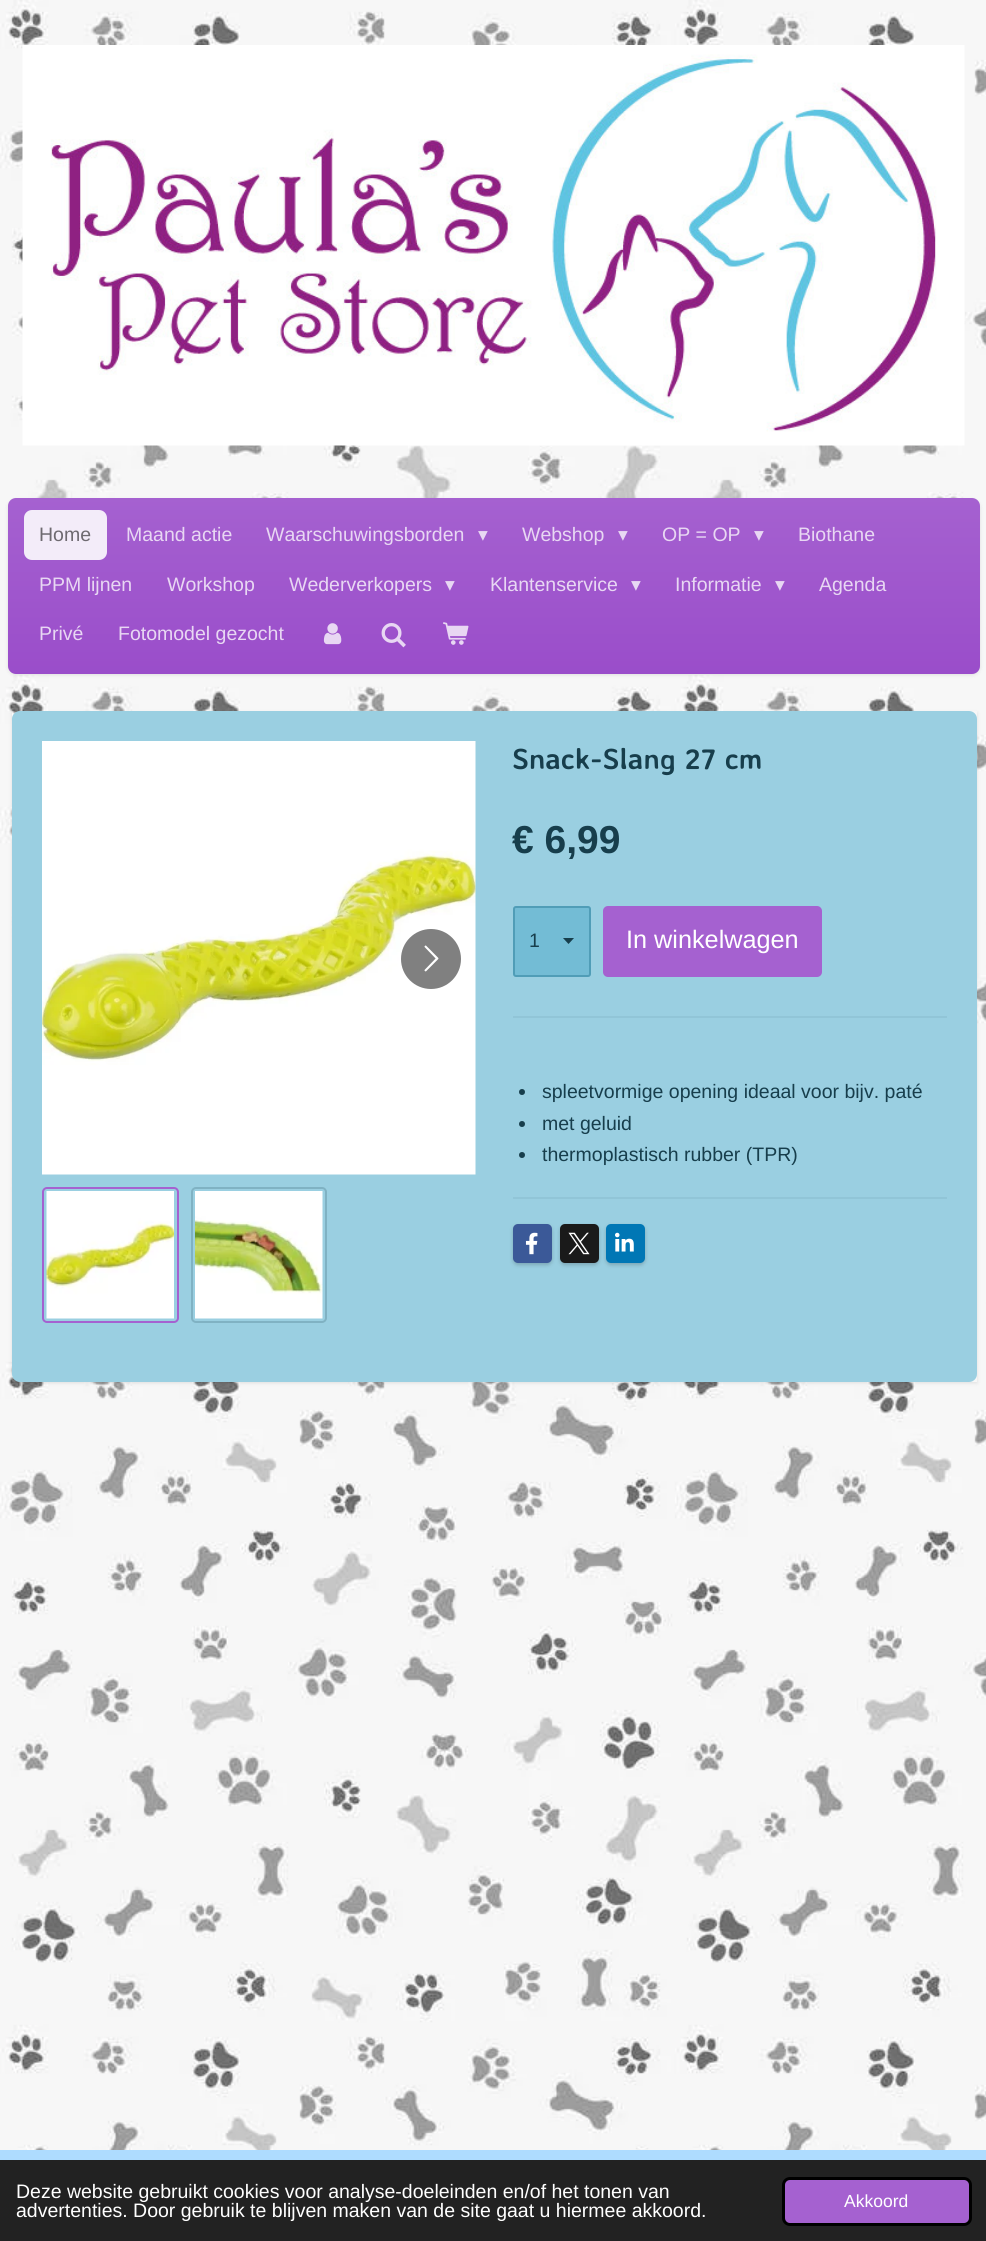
import math
import cairo


def round_path(ctx, x, y, w, h, r):
	ctx.new_sub_path()
	for i, (u, v) in enumerate([(x + w - r, y + h - r), (x + r, y + h - r), (x + r, y + r), (x + w - r, y + r)]):
		ctx.arc(u, v, r, i * math.pi / 2, (i + 1) * math.pi / 2)
	ctx.close_path()

def blur_box(ctx, x, y, w, h, r, blur, alpha):
	ctx.push_group_with_content(cairo.CONTENT_ALPHA)
	ctx.set_operator(cairo.OPERATOR_SOURCE)
	for i in range(15, -16, -2):
		e = blur * i / 6
		if min(w, h) + 2 * e > 0:
			ctx.set_source_rgba(0, 0, 0, alpha * math.erfc((i - 1) / 8.5) / 2)
			round_path(ctx, x - e, y - e, w + 2 * e, h + 2 * e, max(0, min(r + e + blur * .6, min(w, h) / 2 + e)))
			ctx.fill()
	ctx.mask(ctx.pop_group())

def paste(ctx, path, x, y, w, h):
	ctx.save()
	ctx.set_source_surface(cairo.ImageSurface.create_from_png(path), x, y)
	ctx.rectangle(x, y, w, h)
	ctx.fill()
	ctx.restore()

def draw(ctx):
	ctx.set_source_rgb(1, 1, 1)
	ctx.paint()
	paste(ctx, 'media/1.png', 0, 0, 986, 2150)
	paste(ctx, 'media/2.png', 22, 45, 943, 401)
	ctx.set_source_rgb(0, 0, 0)
	blur_box(ctx, 8, 500, 972, 175, 8, 2, 0.1)
	gradient = cairo.LinearGradient(494, 674, 494, 498)
	gradient.add_color_stop_rgba(0, 0.604, 0.302, 0.792, 1)
	gradient.add_color_stop_rgba(1, 0.647, 0.38, 0.816, 1)
	ctx.set_source(gradient)
	round_path(ctx, 8, 498, 972, 176, 8)
	ctx.fill()
	ctx.set_source_rgb(0.953, 0.922, 0.976)
	round_path(ctx, 24, 510, 83, 50, 8)
	ctx.fill()
	ctx.select_font_face('Liberation Sans')
	ctx.set_font_size(19.5)
	ctx.set_source_rgb(0.431, 0.416, 0.439)
	ctx.move_to(39, 541)
	ctx.show_text('Home')
	ctx.set_source_rgb(0.91, 0.843, 0.953)
	ctx.move_to(126, 541)
	ctx.show_text('Maand actie')
	ctx.move_to(266, 541)
	ctx.show_text('Waarschuwingsborden')
	ctx.select_font_face('DejaVu Sans')
	ctx.move_to(478, 541)
	ctx.show_text('▾')
	ctx.select_font_face('Liberation Sans')
	ctx.move_to(522, 541)
	ctx.show_text('Webshop')
	ctx.select_font_face('DejaVu Sans')
	ctx.move_to(618, 541)
	ctx.show_text('▾')
	ctx.select_font_face('Liberation Sans')
	ctx.move_to(662, 541)
	ctx.show_text('OP = OP')
	ctx.select_font_face('DejaVu Sans')
	ctx.move_to(754, 541)
	ctx.show_text('▾')
	ctx.select_font_face('Liberation Sans')
	for x, y, s in [
		(798, 541, 'Biothane'),
		(39, 591, 'PPM lijnen'),
		(167, 591, 'Workshop'),
		(289, 591, 'Wederverkopers'),
	]:
		ctx.move_to(x, y)
		ctx.show_text(s)
	ctx.select_font_face('DejaVu Sans')
	ctx.move_to(445, 591)
	ctx.show_text('▾')
	ctx.select_font_face('Liberation Sans')
	ctx.move_to(490, 591)
	ctx.show_text('Klantenservice')
	ctx.select_font_face('DejaVu Sans')
	ctx.move_to(631, 591)
	ctx.show_text('▾')
	ctx.select_font_face('Liberation Sans')
	ctx.move_to(675, 591)
	ctx.show_text('Informatie')
	ctx.select_font_face('DejaVu Sans')
	ctx.move_to(775, 591)
	ctx.show_text('▾')
	ctx.select_font_face('Liberation Sans')
	for x, y, s in [
		(819, 591, 'Agenda'),
		(39, 640, 'Privé'),
		(118, 640, 'Fotomodel gezocht'),
	]:
		ctx.move_to(x, y)
		ctx.show_text(s)
	paste(ctx, 'media/3.png', 323, 623, 19, 22)
	paste(ctx, 'media/4.png', 381, 623, 25, 25)
	paste(ctx, 'media/5.png', 443, 622, 26, 23)
	ctx.save()
	ctx.set_fill_rule(cairo.FILL_RULE_EVEN_ODD)
	ctx.new_path()
	ctx.move_to(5, 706)
	ctx.line_to(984, 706)
	ctx.line_to(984, 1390)
	ctx.line_to(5, 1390)
	ctx.close_path()
	ctx.move_to(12, 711)
	ctx.line_to(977, 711)
	ctx.line_to(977, 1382)
	ctx.line_to(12, 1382)
	ctx.close_path()
	ctx.clip()
	ctx.set_source_rgb(0, 0, 0)
	blur_box(ctx, 12, 713, 965, 670, 0, 2, 0.1)
	ctx.restore()
	ctx.set_source_rgb(0.604, 0.812, 0.882)
	round_path(ctx, 12, 711, 965, 671, 8)
	ctx.fill()
	paste(ctx, 'media/6.png', 42, 741, 434, 434)
	ctx.set_source_rgb(0.502, 0.502, 0.502)
	ctx.arc(431, 959, 30, 0, 2 * math.pi)
	ctx.fill()
	paste(ctx, 'media/7.png', 424, 945, 15, 27)
	round_path(ctx, 43, 1188, 135, 134, 4)
	ctx.set_source_rgb(0.647, 0.38, 0.816)
	ctx.stroke()
	paste(ctx, 'media/8.png', 46, 1191, 128, 128)
	round_path(ctx, 192, 1188, 134, 134, 4)
	ctx.set_source_rgb(0.502, 0.698, 0.765)
	ctx.stroke()
	paste(ctx, 'media/9.png', 195, 1191, 128, 128)
	ctx.select_font_face('Averia Sans Libre', cairo.FONT_SLANT_NORMAL, cairo.FONT_WEIGHT_BOLD)
	ctx.set_font_size(29.25)
	ctx.set_source_rgb(0.09, 0.243, 0.298)
	ctx.move_to(512, 769)
	ctx.show_text('Snack-Slang 27 cm')
	ctx.select_font_face('Liberation Sans', cairo.FONT_SLANT_NORMAL, cairo.FONT_WEIGHT_BOLD)
	ctx.set_font_size(39)
	ctx.move_to(512, 853)
	ctx.show_text('€ 6,99')
	ctx.set_source_rgb(0.451, 0.737, 0.835)
	round_path(ctx, 513, 906, 78, 71, 3)
	ctx.fill()
	ctx.save()
	ctx.rectangle(563, 938, 12, 6)
	ctx.clip()
	ctx.set_source_rgb(0.09, 0.243, 0.298)
	ctx.new_path()
	ctx.move_to(568.5, 944)
	ctx.line_to(562.5, 937.5)
	ctx.line_to(574.5, 937.5)
	ctx.close_path()
	ctx.fill()
	ctx.restore()
	round_path(ctx, 514, 907, 76, 69, 2)
	ctx.set_source_rgba(0.18, 0.498, 0.608, 0.5)
	ctx.stroke()
	ctx.select_font_face('Liberation Sans')
	ctx.set_font_size(19.5)
	ctx.set_source_rgb(0.09, 0.243, 0.298)
	ctx.move_to(529, 947)
	ctx.show_text('1')
	ctx.set_source_rgb(0.647, 0.38, 0.816)
	round_path(ctx, 603, 906, 219, 71, 5)
	ctx.fill()
	ctx.set_font_size(25.25)
	ctx.set_source_rgb(1, 1, 1)
	ctx.move_to(626, 948)
	ctx.show_text('In winkelwagen')
	ctx.set_source_rgb(0.569, 0.773, 0.843)
	ctx.rectangle(513, 1016, 434, 2)
	ctx.fill()
	ctx.set_source_rgb(0.09, 0.243, 0.298)
	ctx.arc(522, 1092, 3, 0, 2 * math.pi)
	ctx.fill()
	ctx.set_font_size(19.5)
	ctx.move_to(542, 1098)
	ctx.show_text('spleetvormige opening ideaal voor bijv. paté')
	ctx.new_path()
	ctx.arc(522, 1124, 3, 0, 2 * math.pi)
	ctx.fill()
	ctx.move_to(542, 1130)
	ctx.show_text('met geluid')
	ctx.new_path()
	ctx.arc(522, 1155, 3, 0, 2 * math.pi)
	ctx.fill()
	ctx.move_to(542, 1161)
	ctx.show_text('thermoplastisch rubber (TPR)')
	ctx.set_source_rgb(0.569, 0.773, 0.843)
	ctx.rectangle(513, 1197, 434, 2)
	ctx.fill()
	ctx.set_source_rgb(0, 0, 0)
	blur_box(ctx, 513, 1226, 39, 39, 5, 2, 0.2)
	ctx.set_source_rgb(0.231, 0.349, 0.596)
	round_path(ctx, 513, 1224, 39, 39, 5)
	ctx.fill()
	paste(ctx, 'media/10.png', 525, 1232, 13, 23)
	ctx.set_source_rgb(0, 0, 0)
	blur_box(ctx, 560, 1226, 39, 39, 5, 2, 0.2)
	ctx.set_source_rgb(0.102, 0.102, 0.102)
	round_path(ctx, 560, 1224, 39, 39, 5)
	ctx.fill()
	paste(ctx, 'media/11.png', 568, 1232, 22, 23)
	ctx.set_source_rgb(0, 0, 0)
	blur_box(ctx, 606, 1226, 39, 39, 5, 2, 0.2)
	ctx.set_source_rgb(0, 0.467, 0.71)
	round_path(ctx, 606, 1224, 39, 39, 5)
	ctx.fill()
	paste(ctx, 'media/12.png', 615, 1232, 19, 20)
	ctx.set_source_rgb(0.682, 0.863, 1)
	ctx.rectangle(0, 2150, 986, 10)
	ctx.fill()
	ctx.set_source_rgb(0.133, 0.133, 0.133)
	ctx.rectangle(0, 2160, 986, 81)
	ctx.fill()
	ctx.set_source_rgb(1, 1, 1)
	ctx.move_to(16, 2198)
	ctx.show_text('Deze website gebruikt cookies voor analyse-doeleinden en/of het tonen van')
	ctx.move_to(16, 2217)
	ctx.show_text('advertenties. Door gebruik te blijven maken van de site gaat u hiermee akkoord.')
	ctx.set_source_rgb(0.647, 0.38, 0.816)
	round_path(ctx, 783.5, 2178.5, 187, 46, 6.5)
	ctx.fill_preserve()
	ctx.set_source_rgb(0, 0, 0)
	ctx.set_line_width(3)
	ctx.stroke()
	ctx.set_font_size(17.5)
	ctx.set_source_rgb(1, 1, 1)
	ctx.move_to(844, 2207)
	ctx.show_text('Akkoord')


surface = cairo.ImageSurface(cairo.FORMAT_RGB24, 986, 2241)
ctx = cairo.Context(surface)
options = cairo.FontOptions()
options.set_hint_metrics(cairo.HINT_METRICS_OFF)
options.set_hint_style(cairo.HINT_STYLE_NONE)
ctx.set_font_options(options)
ctx.set_miter_limit(4)
draw(ctx)
surface.write_to_png('image.png')
